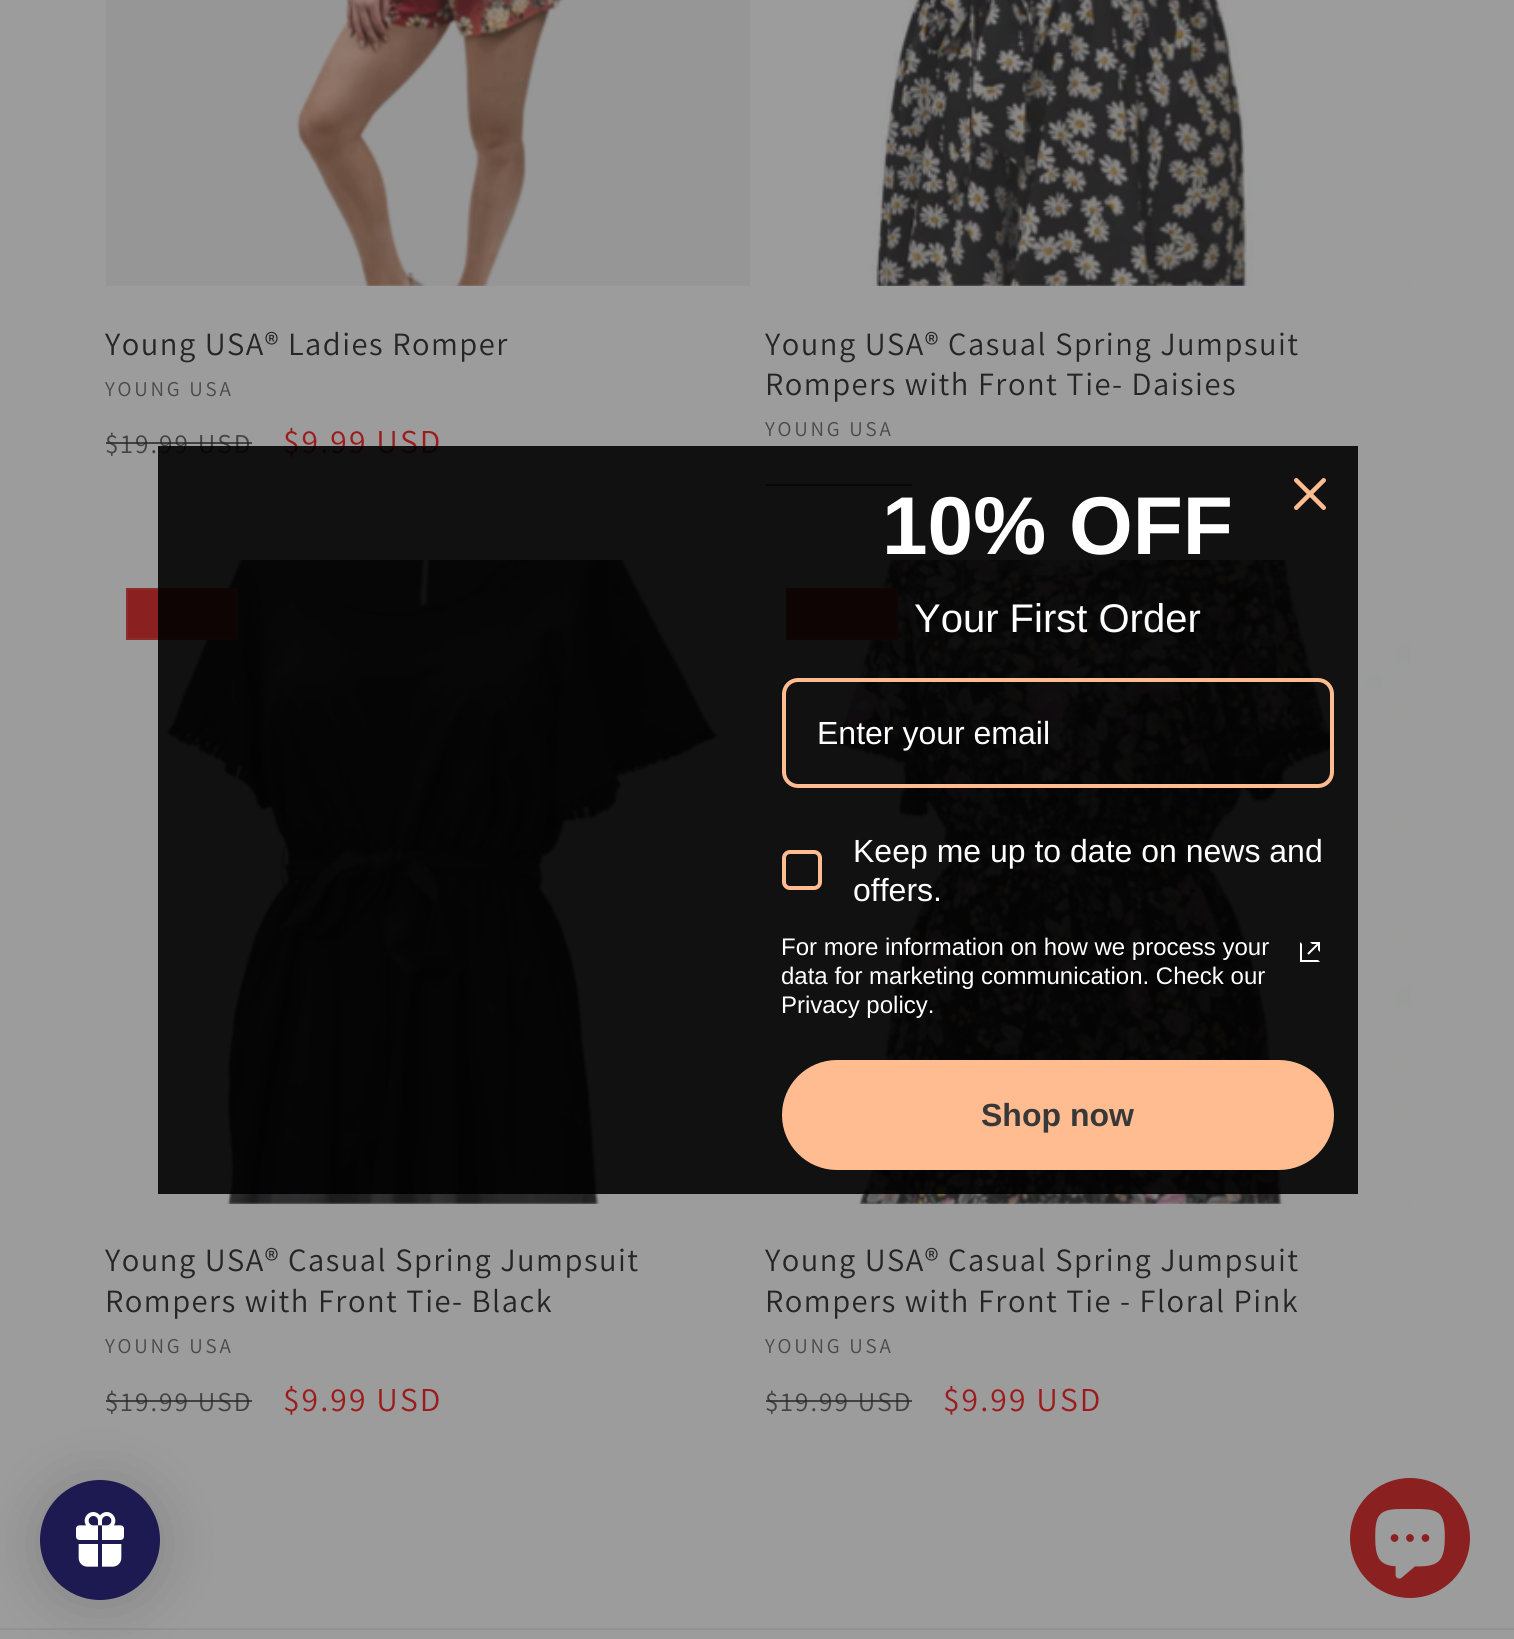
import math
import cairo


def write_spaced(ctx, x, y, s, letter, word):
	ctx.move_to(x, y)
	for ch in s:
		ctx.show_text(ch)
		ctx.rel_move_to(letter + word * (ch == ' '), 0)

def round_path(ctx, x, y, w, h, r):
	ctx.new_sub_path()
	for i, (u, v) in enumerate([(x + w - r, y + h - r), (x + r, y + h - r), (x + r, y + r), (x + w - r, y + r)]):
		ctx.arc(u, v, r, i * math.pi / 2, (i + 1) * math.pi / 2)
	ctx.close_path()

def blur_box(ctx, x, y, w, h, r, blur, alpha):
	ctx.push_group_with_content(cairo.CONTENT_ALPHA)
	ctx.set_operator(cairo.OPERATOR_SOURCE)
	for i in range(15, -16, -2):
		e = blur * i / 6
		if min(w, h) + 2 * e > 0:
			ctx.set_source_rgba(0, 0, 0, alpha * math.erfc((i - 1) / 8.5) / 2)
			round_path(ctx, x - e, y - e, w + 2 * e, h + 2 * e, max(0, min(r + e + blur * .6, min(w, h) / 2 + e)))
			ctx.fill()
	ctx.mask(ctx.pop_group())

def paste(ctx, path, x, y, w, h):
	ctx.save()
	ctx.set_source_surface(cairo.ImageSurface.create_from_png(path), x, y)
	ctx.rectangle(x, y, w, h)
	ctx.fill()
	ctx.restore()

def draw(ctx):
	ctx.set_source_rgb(0.612, 0.612, 0.612)
	ctx.paint()
	ctx.set_source_rgb(0.588, 0.588, 0.588)
	ctx.rectangle(106, 0, 644, 286)
	ctx.fill()
	paste(ctx, 'media/1.png', 296, 0, 269, 286)
	ctx.select_font_face('Assistant')
	ctx.set_font_size(32.5)
	ctx.set_source_rgb(0.145, 0.145, 0.145)
	write_spaced(ctx, 105, 355, 'Young USA® Ladies Romper', 1.5, 0)
	ctx.set_font_size(21)
	ctx.set_source_rgb(0.286, 0.286, 0.286)
	write_spaced(ctx, 105, 396, 'YOUNG USA', 2.75, 0)
	ctx.set_font_size(27.25)
	ctx.set_source_rgb(0.263, 0.263, 0.263)
	write_spaced(ctx, 105, 453, '$19.99 USD', 2.1, 0)
	ctx.set_source_rgba(0.145, 0.145, 0.145, 0.75)
	ctx.rectangle(106, 442, 146, 2)
	ctx.fill()
	ctx.set_font_size(33.5)
	ctx.set_source_rgb(0.612, 0.11, 0.11)
	write_spaced(ctx, 283, 453, '$9.99 USD', 2.1, 0)
	ctx.set_source_rgb(0.588, 0.588, 0.588)
	ctx.rectangle(766, 0, 644, 286)
	ctx.fill()
	paste(ctx, 'media/2.png', 766, 0, 644, 286)
	ctx.set_font_size(32.5)
	ctx.set_source_rgb(0.145, 0.145, 0.145)
	write_spaced(ctx, 765, 355, 'Young USA® Casual Spring Jumpsuit', 1.5, 0)
	write_spaced(ctx, 765, 395, 'Rompers with Front Tie- Daisies', 1.5, 0)
	ctx.set_font_size(21)
	ctx.set_source_rgb(0.286, 0.286, 0.286)
	write_spaced(ctx, 765, 436, 'YOUNG USA', 2.75, 0)
	ctx.set_source_rgba(0.145, 0.145, 0.145, 0.75)
	ctx.rectangle(766, 484, 146, 2)
	ctx.fill()
	ctx.set_source_rgb(0.588, 0.588, 0.588)
	ctx.rectangle(106, 560, 644, 644)
	ctx.fill()
	paste(ctx, 'media/3.png', 106, 560, 644, 644)
	ctx.set_source_rgb(0.541, 0.125, 0.125)
	ctx.rectangle(127, 589, 110, 50)
	ctx.fill_preserve()
	ctx.set_source_rgb(0.549, 0.176, 0.176)
	ctx.stroke()
	ctx.set_font_size(32.5)
	ctx.set_source_rgb(0.145, 0.145, 0.145)
	write_spaced(ctx, 105, 1271, 'Young USA® Casual Spring Jumpsuit', 1.5, 0)
	write_spaced(ctx, 105, 1312, 'Rompers with Front Tie- Black', 1.5, 0)
	ctx.set_font_size(21)
	ctx.set_source_rgb(0.286, 0.286, 0.286)
	write_spaced(ctx, 105, 1353, 'YOUNG USA', 2.75, 0)
	ctx.set_font_size(27.25)
	ctx.set_source_rgb(0.263, 0.263, 0.263)
	write_spaced(ctx, 105, 1411, '$19.99 USD', 2.1, 0)
	ctx.set_source_rgba(0.145, 0.145, 0.145, 0.75)
	ctx.rectangle(106, 1400, 146, 2)
	ctx.fill()
	ctx.set_font_size(33.5)
	ctx.set_source_rgb(0.612, 0.11, 0.11)
	write_spaced(ctx, 283, 1411, '$9.99 USD', 2.1, 0)
	ctx.set_source_rgb(0.588, 0.588, 0.588)
	ctx.rectangle(766, 560, 644, 644)
	ctx.fill()
	paste(ctx, 'media/4.png', 766, 560, 644, 644)
	ctx.set_source_rgb(0.541, 0.125, 0.125)
	ctx.rectangle(787, 589, 110, 50)
	ctx.fill_preserve()
	ctx.set_source_rgb(0.549, 0.176, 0.176)
	ctx.stroke()
	ctx.set_font_size(32.5)
	ctx.set_source_rgb(0.145, 0.145, 0.145)
	write_spaced(ctx, 765, 1271, 'Young USA® Casual Spring Jumpsuit', 1.5, 0)
	write_spaced(ctx, 765, 1312, 'Rompers with Front Tie - Floral Pink', 1.5, 0)
	ctx.set_font_size(21)
	ctx.set_source_rgb(0.286, 0.286, 0.286)
	write_spaced(ctx, 765, 1353, 'YOUNG USA', 2.75, 0)
	ctx.set_font_size(27.25)
	ctx.set_source_rgb(0.263, 0.263, 0.263)
	write_spaced(ctx, 765, 1411, '$19.99 USD', 2.1, 0)
	ctx.set_source_rgba(0.145, 0.145, 0.145, 0.75)
	ctx.rectangle(766, 1400, 146, 2)
	ctx.fill()
	ctx.set_font_size(33.5)
	ctx.set_source_rgb(0.612, 0.11, 0.11)
	write_spaced(ctx, 943, 1411, '$9.99 USD', 2.1, 0)
	ctx.set_source_rgba(0.004, 0.004, 0.004, 0.89)
	ctx.rectangle(158, 446, 1200, 748)
	ctx.fill()
	paste(ctx, 'media/5.png', 1294, 478, 32, 32)
	ctx.select_font_face('Liberation Sans', cairo.FONT_SLANT_NORMAL, cairo.FONT_WEIGHT_BOLD)
	ctx.set_font_size(82)
	ctx.set_source_rgb(1, 1, 1)
	ctx.move_to(882, 554)
	ctx.show_text('10% OFF')
	ctx.select_font_face('Liberation Sans')
	ctx.set_font_size(40)
	ctx.move_to(914, 632)
	ctx.show_text('Your First Order')
	round_path(ctx, 784, 680, 548, 106, 14)
	ctx.set_source_rgb(1, 0.737, 0.565)
	ctx.set_line_width(4)
	ctx.stroke()
	ctx.set_font_size(32)
	ctx.set_source_rgb(1, 1, 1)
	ctx.move_to(817, 744)
	ctx.show_text('Enter your email')
	round_path(ctx, 784, 852, 36, 36, 6)
	ctx.set_source_rgb(1, 0.737, 0.565)
	ctx.stroke()
	ctx.set_source_rgb(1, 1, 1)
	ctx.move_to(853, 862)
	ctx.show_text('Keep me up to date on news and')
	ctx.move_to(853, 901)
	ctx.show_text('offers.')
	ctx.set_font_size(24)
	for x, y, s in [
		(781, 955, 'For more information on how we process your'),
		(781, 984, 'data for marketing communication. Check our'),
		(781, 1013, 'Privacy policy.'),
	]:
		ctx.move_to(x, y)
		ctx.show_text(s)
	paste(ctx, 'media/6.png', 1300, 942, 20, 20)
	ctx.set_source_rgb(1, 0.737, 0.565)
	round_path(ctx, 784, 1062, 548, 106, 53)
	ctx.fill_preserve()
	ctx.stroke()
	ctx.select_font_face('Liberation Sans', cairo.FONT_SLANT_NORMAL, cairo.FONT_WEIGHT_BOLD)
	ctx.set_font_size(32)
	ctx.set_source_rgb(0.22, 0.22, 0.22)
	ctx.move_to(981, 1126)
	ctx.show_text('Shop now')
	ctx.set_source_rgb(0.573, 0.573, 0.573)
	ctx.rectangle(0, 1628, 1514, 2)
	ctx.fill()
	ctx.set_source_rgb(0, 0, 0)
	blur_box(ctx, 40, 1484, 120, 120, 60, 30, 0.15)
	ctx.set_source_rgb(0.114, 0.098, 0.318)
	ctx.arc(100, 1540, 60, 0, 2 * math.pi)
	ctx.fill()
	paste(ctx, 'media/7.png', 76, 1512, 48, 55)
	ctx.set_source_rgb(0.541, 0.125, 0.125)
	ctx.arc(1410, 1538, 60, 0, 2 * math.pi)
	ctx.fill()
	paste(ctx, 'media/8.png', 1375, 1509, 70, 70)


surface = cairo.ImageSurface(cairo.FORMAT_RGB24, 1514, 1639)
ctx = cairo.Context(surface)
options = cairo.FontOptions()
options.set_hint_metrics(cairo.HINT_METRICS_OFF)
options.set_hint_style(cairo.HINT_STYLE_NONE)
ctx.set_font_options(options)
ctx.set_miter_limit(4)
draw(ctx)
surface.write_to_png('image.png')
